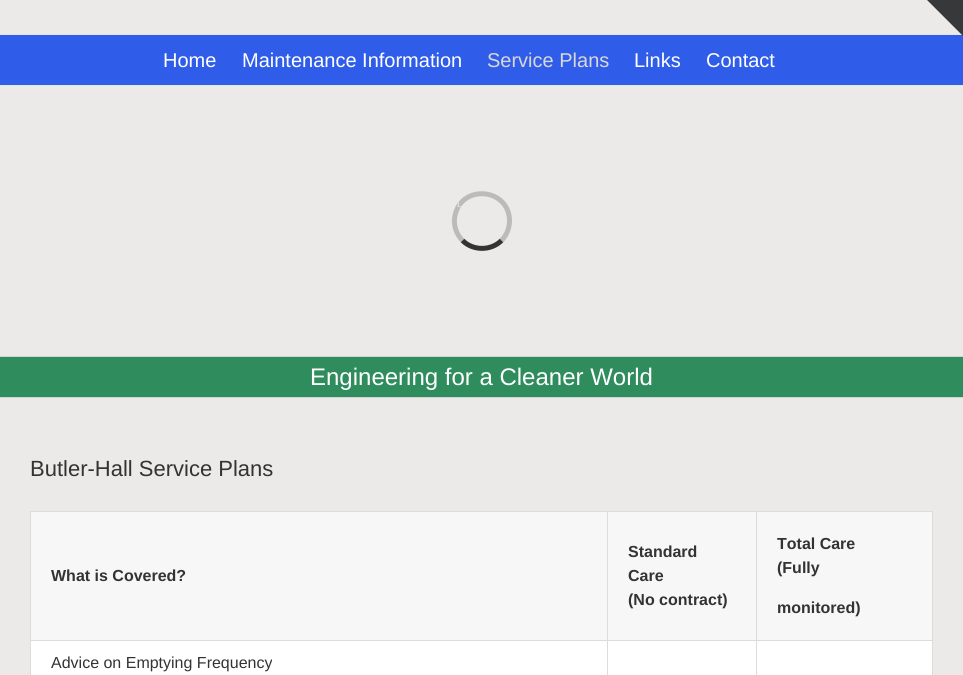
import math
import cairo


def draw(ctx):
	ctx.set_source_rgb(0.922, 0.914, 0.914)
	ctx.paint()
	ctx.set_source_rgb(0.898, 0.898, 0.898)
	ctx.rectangle(0, 34, 963, 1)
	ctx.fill()
	ctx.set_source_rgb(0.184, 0.365, 0.914)
	ctx.rectangle(0, 35, 963, 50)
	ctx.fill()
	ctx.set_source_rgb(0.212, 0.22, 0.224)
	ctx.new_path()
	ctx.move_to(927, 0)
	ctx.line_to(963, 0)
	ctx.line_to(963, 36)
	ctx.close_path()
	ctx.fill()
	ctx.set_source_rgb(0.898, 0.898, 0.898)
	ctx.rectangle(0, 85, 963, 1)
	ctx.fill()
	ctx.select_font_face('Liberation Sans')
	ctx.set_font_size(20)
	ctx.set_source_rgb(1, 1, 1)
	ctx.move_to(163, 67)
	ctx.show_text('Home')
	ctx.move_to(242, 67)
	ctx.show_text('Maintenance Information')
	ctx.set_source_rgb(0.847, 0.847, 0.847)
	ctx.move_to(487, 67)
	ctx.show_text('Service Plans')
	ctx.set_source_rgb(1, 1, 1)
	ctx.move_to(634, 67)
	ctx.show_text('Links')
	ctx.move_to(706, 67)
	ctx.show_text('Contact')
	ctx.new_path()
	ctx.move_to(501.5, 240.5)
	ctx.curve_to(491, 251, 473, 251, 462.5, 240.5)
	ctx.set_source_rgb(0.2, 0.2, 0.2)
	ctx.set_line_width(5)
	ctx.stroke()
	ctx.new_path()
	ctx.move_to(462.5, 240.5)
	ctx.curve_to(456, 234, 453, 224.5, 455, 215.5)
	ctx.curve_to(461.5, 183.5, 509.5, 188, 509.5, 221)
	ctx.curve_to(509.5, 228, 506.5, 235.5, 501.5, 240.5)
	ctx.set_source_rgba(0, 0, 0, 0.2)
	ctx.stroke()
	ctx.set_font_size(10)
	ctx.set_source_rgb(0.902, 0.894, 0.894)
	ctx.move_to(457, 207)
	ctx.show_text('L')
	ctx.set_source_rgb(0.184, 0.549, 0.365)
	ctx.rectangle(0, 357, 963, 40)
	ctx.fill()
	ctx.set_source_rgb(0.824, 0.827, 0.831)
	ctx.rectangle(0, 356, 963, 1)
	ctx.rectangle(0, 397, 963, 1)
	ctx.fill()
	ctx.set_font_size(24)
	ctx.set_source_rgb(1, 1, 1)
	ctx.move_to(310, 385)
	ctx.show_text('Engineering for a Cleaner World')
	ctx.set_font_size(22)
	ctx.set_source_rgb(0.2, 0.2, 0.2)
	ctx.move_to(30, 476)
	ctx.show_text('Butler-Hall Service Plans')
	ctx.set_source_rgb(1, 1, 1)
	ctx.rectangle(31, 641, 901, 34)
	ctx.fill()
	ctx.set_source_rgb(0.863, 0.863, 0.863)
	ctx.rectangle(30, 511, 903, 1)
	ctx.rectangle(932, 511, 1, 164)
	ctx.rectangle(30, 511, 1, 164)
	ctx.fill()
	ctx.set_source_rgb(0.965, 0.965, 0.965)
	ctx.rectangle(31, 512, 576, 128)
	ctx.fill()
	ctx.select_font_face('Liberation Sans', cairo.FONT_SLANT_NORMAL, cairo.FONT_WEIGHT_BOLD)
	ctx.set_font_size(16)
	ctx.set_source_rgb(0.2, 0.2, 0.2)
	ctx.move_to(51, 581)
	ctx.show_text('What is Covered?')
	ctx.set_source_rgb(0.965, 0.965, 0.965)
	ctx.rectangle(608, 512, 148, 128)
	ctx.fill()
	ctx.set_source_rgb(0.863, 0.863, 0.863)
	ctx.rectangle(756, 640, 177, 1)
	ctx.rectangle(756, 640, 1, 35)
	ctx.rectangle(607, 640, 150, 1)
	ctx.rectangle(607, 640, 1, 35)
	ctx.rectangle(30, 640, 578, 1)
	ctx.rectangle(607, 511, 1, 130)
	ctx.fill()
	ctx.set_source_rgb(0.2, 0.2, 0.2)
	for x, y, s in [
		(628, 557, 'Standard'),
		(628, 581, 'Care'),
		(628, 605, '(No contract)'),
	]:
		ctx.move_to(x, y)
		ctx.show_text(s)
	ctx.set_source_rgb(0.965, 0.965, 0.965)
	ctx.rectangle(757, 512, 175, 128)
	ctx.fill()
	ctx.set_source_rgb(0.863, 0.863, 0.863)
	ctx.rectangle(756, 511, 1, 130)
	ctx.fill()
	ctx.set_source_rgb(0.2, 0.2, 0.2)
	for x, y, s in [
		(777, 549, 'Total Care'),
		(777, 573, '(Fully'),
		(777, 613, 'monitored)'),
	]:
		ctx.move_to(x, y)
		ctx.show_text(s)
	ctx.select_font_face('Liberation Sans')
	ctx.move_to(51, 668)
	ctx.show_text('Advice on Emptying Frequency')


surface = cairo.ImageSurface(cairo.FORMAT_RGB24, 963, 675)
ctx = cairo.Context(surface)
options = cairo.FontOptions()
options.set_hint_metrics(cairo.HINT_METRICS_OFF)
options.set_hint_style(cairo.HINT_STYLE_NONE)
ctx.set_font_options(options)
ctx.set_miter_limit(4)
draw(ctx)
surface.write_to_png('image.png')
